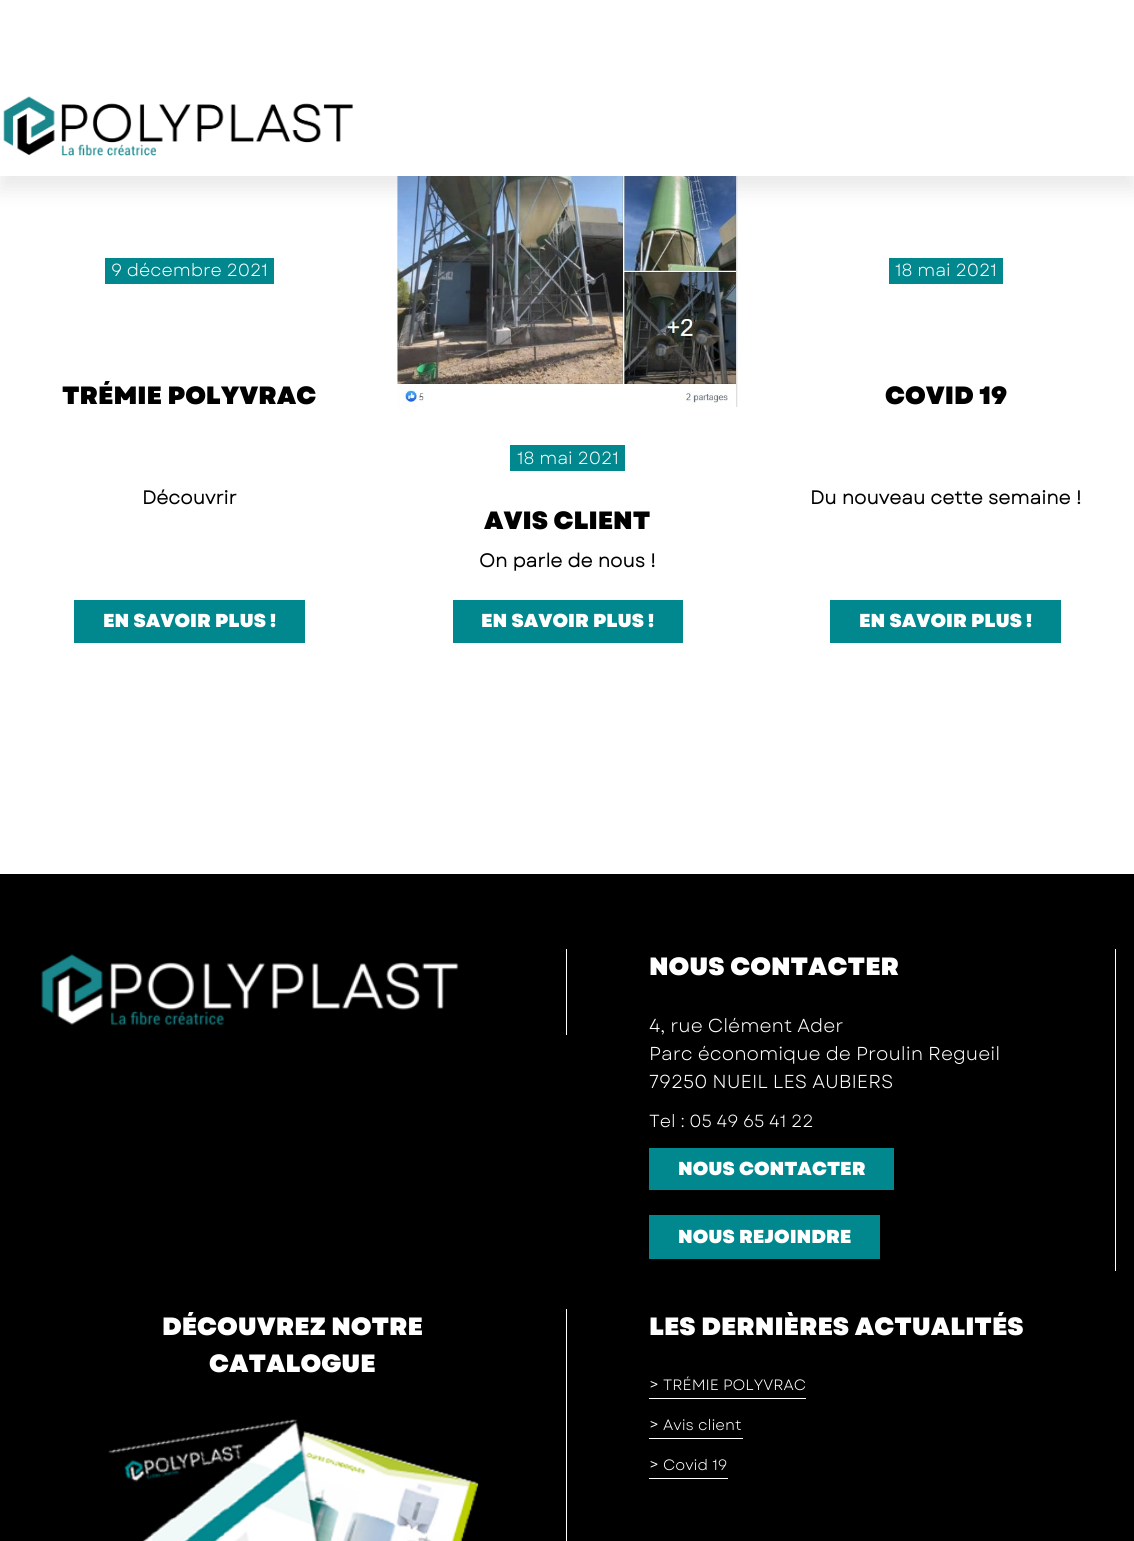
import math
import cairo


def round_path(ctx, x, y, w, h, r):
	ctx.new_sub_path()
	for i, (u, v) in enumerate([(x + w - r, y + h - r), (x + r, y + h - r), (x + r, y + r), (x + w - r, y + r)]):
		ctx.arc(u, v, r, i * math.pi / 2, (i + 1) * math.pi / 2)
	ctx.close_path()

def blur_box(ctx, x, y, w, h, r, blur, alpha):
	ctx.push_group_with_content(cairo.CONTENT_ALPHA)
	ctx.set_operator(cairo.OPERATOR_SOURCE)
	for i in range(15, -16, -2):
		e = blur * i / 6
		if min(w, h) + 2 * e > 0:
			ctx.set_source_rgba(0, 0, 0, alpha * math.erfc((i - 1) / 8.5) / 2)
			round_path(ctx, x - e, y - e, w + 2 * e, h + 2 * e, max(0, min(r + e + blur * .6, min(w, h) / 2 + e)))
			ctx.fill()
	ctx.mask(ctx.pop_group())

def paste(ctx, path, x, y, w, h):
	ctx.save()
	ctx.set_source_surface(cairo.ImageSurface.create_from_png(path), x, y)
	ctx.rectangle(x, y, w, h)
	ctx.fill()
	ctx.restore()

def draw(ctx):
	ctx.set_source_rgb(1, 1, 1)
	ctx.paint()
	paste(ctx, 'media/2.png', 397, 176, 341, 231)
	ctx.set_source_rgb(0.439, 0.439, 0.439)
	blur_box(ctx, 0, 13, 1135, 176, 0, 10.5, 0.16)
	ctx.set_source_rgb(1, 1, 1)
	ctx.rectangle(0, 0, 1134, 176)
	ctx.fill()
	paste(ctx, 'media/1.png', 3, 96, 350, 60)
	ctx.set_source_rgb(0, 0.533, 0.557)
	ctx.rectangle(105, 258, 169, 26)
	ctx.fill()
	ctx.select_font_face('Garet')
	ctx.set_font_size(17.5)
	ctx.set_source_rgb(1, 1, 1)
	ctx.move_to(111, 276)
	ctx.show_text('9 décembre 2021')
	ctx.select_font_face('Garet Black')
	ctx.set_font_size(25)
	ctx.set_source_rgb(0, 0, 0)
	ctx.move_to(62, 404)
	ctx.show_text('TRÉMIE POLYVRAC')
	ctx.select_font_face('Garet', cairo.FONT_SLANT_NORMAL, cairo.FONT_WEIGHT_BOLD)
	ctx.set_font_size(18.75)
	ctx.move_to(142, 504)
	ctx.show_text('Découvrir')
	ctx.set_source_rgb(0, 0.533, 0.557)
	ctx.rectangle(74, 600, 231, 43)
	ctx.fill()
	ctx.select_font_face('Garet Black')
	ctx.set_source_rgb(1, 1, 1)
	ctx.move_to(103, 627)
	ctx.show_text('EN SAVOIR PLUS !')
	ctx.set_source_rgb(0, 0.533, 0.557)
	ctx.rectangle(510, 445, 115, 26)
	ctx.fill()
	ctx.select_font_face('Garet')
	ctx.set_font_size(17.5)
	ctx.set_source_rgb(1, 1, 1)
	ctx.move_to(517, 464)
	ctx.show_text('18 mai 2021')
	ctx.select_font_face('Garet Black')
	ctx.set_font_size(25)
	ctx.set_source_rgb(0, 0, 0)
	ctx.move_to(484, 529)
	ctx.show_text('AVIS CLIENT')
	ctx.select_font_face('Garet', cairo.FONT_SLANT_NORMAL, cairo.FONT_WEIGHT_BOLD)
	ctx.set_font_size(18.75)
	ctx.move_to(479, 567)
	ctx.show_text('On parle de nous !')
	ctx.set_source_rgb(0, 0.533, 0.557)
	ctx.rectangle(453, 600, 230, 43)
	ctx.fill()
	ctx.select_font_face('Garet Black')
	ctx.set_source_rgb(1, 1, 1)
	ctx.move_to(481, 627)
	ctx.show_text('EN SAVOIR PLUS !')
	ctx.set_source_rgb(0, 0.533, 0.557)
	ctx.rectangle(889, 258, 114, 26)
	ctx.fill()
	ctx.select_font_face('Garet')
	ctx.set_font_size(17.5)
	ctx.set_source_rgb(1, 1, 1)
	ctx.move_to(895, 276)
	ctx.show_text('18 mai 2021')
	ctx.select_font_face('Garet Black')
	ctx.set_font_size(25)
	ctx.set_source_rgb(0, 0, 0)
	ctx.move_to(885, 404)
	ctx.show_text('COVID 19')
	ctx.select_font_face('Garet', cairo.FONT_SLANT_NORMAL, cairo.FONT_WEIGHT_BOLD)
	ctx.set_font_size(18.75)
	ctx.move_to(810, 504)
	ctx.show_text('Du nouveau cette semaine !')
	ctx.set_source_rgb(0, 0.533, 0.557)
	ctx.rectangle(830, 600, 231, 43)
	ctx.fill()
	ctx.select_font_face('Garet Black')
	ctx.set_source_rgb(1, 1, 1)
	ctx.move_to(859, 627)
	ctx.show_text('EN SAVOIR PLUS !')
	ctx.set_source_rgb(0, 0, 0)
	ctx.rectangle(0, 874, 1134, 667)
	ctx.fill()
	ctx.set_source_rgb(1, 1, 1)
	ctx.rectangle(566, 949, 1, 86)
	ctx.fill()
	paste(ctx, 'media/3.png', 41, 954, 418, 72)
	ctx.rectangle(1115, 949, 1, 322)
	ctx.fill()
	ctx.set_font_size(25)
	ctx.move_to(649, 975)
	ctx.show_text('NOUS CONTACTER')
	ctx.select_font_face('Garet')
	ctx.set_font_size(18.75)
	for x, y, s in [
		(649, 1032, '4, rue Clément Ader'),
		(649, 1060, 'Parc économique de Proulin Regueil'),
		(649, 1088, '79250 NUEIL LES AUBIERS'),
	]:
		ctx.move_to(x, y)
		ctx.show_text(s)
	ctx.set_font_size(17.5)
	ctx.move_to(649, 1127)
	ctx.show_text('Tel : 05 49 65 41 22')
	ctx.set_source_rgb(0, 0.533, 0.557)
	ctx.rectangle(649, 1148, 245, 42)
	ctx.fill()
	ctx.select_font_face('Garet Black')
	ctx.set_font_size(18.75)
	ctx.set_source_rgb(1, 1, 1)
	ctx.move_to(678, 1175)
	ctx.show_text('NOUS CONTACTER')
	ctx.set_source_rgb(0, 0.533, 0.557)
	ctx.rectangle(649, 1215, 231, 44)
	ctx.fill()
	ctx.set_source_rgb(1, 1, 1)
	ctx.move_to(678, 1243)
	ctx.show_text('NOUS REJOINDRE')
	ctx.rectangle(566, 1309, 1, 232)
	ctx.fill()
	ctx.set_font_size(25)
	ctx.move_to(162, 1335)
	ctx.show_text('DÉCOUVREZ NOTRE')
	ctx.move_to(209, 1372)
	ctx.show_text('CATALOGUE')
	paste(ctx, 'media/4.png', 108, 1419, 371, 122)
	ctx.move_to(649, 1335)
	ctx.show_text('LES DERNIÈRES ACTUALITÉS')
	ctx.rectangle(649, 1398, 157, 1)
	ctx.fill()
	ctx.select_font_face('Garet')
	ctx.set_font_size(17.5)
	ctx.move_to(649, 1390)
	ctx.show_text('>')
	ctx.set_font_size(15)
	ctx.move_to(663, 1390)
	ctx.show_text('TRÉMIE POLYVRAC')
	ctx.rectangle(649, 1438, 94, 1)
	ctx.fill()
	ctx.set_font_size(17.5)
	ctx.move_to(649, 1430)
	ctx.show_text('>')
	ctx.set_font_size(15)
	ctx.move_to(663, 1430)
	ctx.show_text('Avis client')
	ctx.rectangle(649, 1478, 79, 1)
	ctx.fill()
	ctx.set_font_size(17.5)
	ctx.move_to(649, 1470)
	ctx.show_text('>')
	ctx.set_font_size(15)
	ctx.move_to(663, 1470)
	ctx.show_text('Covid 19')


surface = cairo.ImageSurface(cairo.FORMAT_RGB24, 1134, 1541)
ctx = cairo.Context(surface)
options = cairo.FontOptions()
options.set_hint_metrics(cairo.HINT_METRICS_OFF)
options.set_hint_style(cairo.HINT_STYLE_NONE)
ctx.set_font_options(options)
ctx.set_miter_limit(4)
draw(ctx)
surface.write_to_png('image.png')
